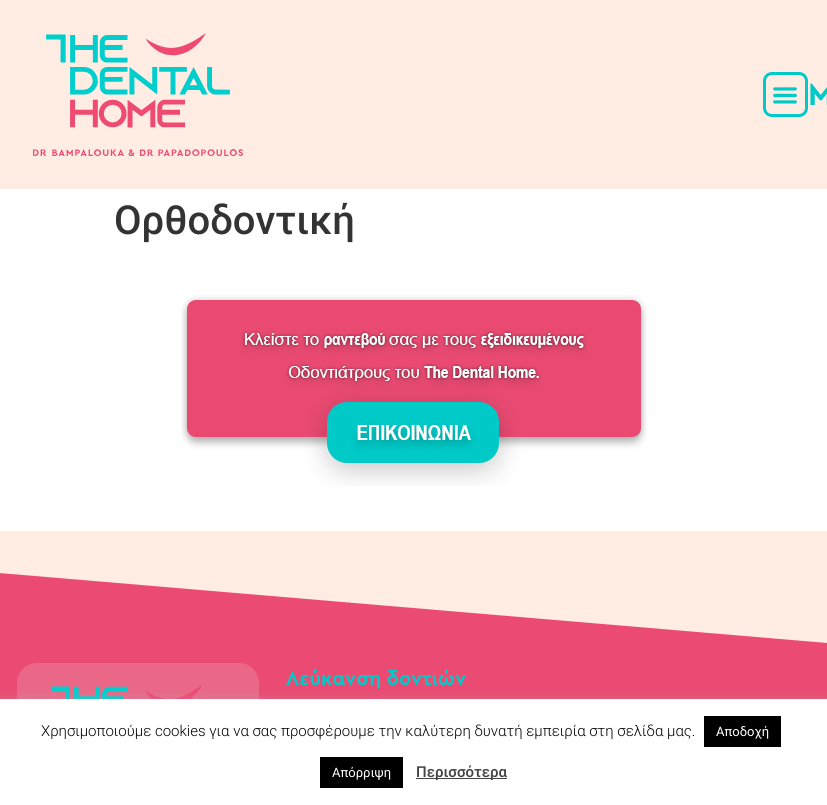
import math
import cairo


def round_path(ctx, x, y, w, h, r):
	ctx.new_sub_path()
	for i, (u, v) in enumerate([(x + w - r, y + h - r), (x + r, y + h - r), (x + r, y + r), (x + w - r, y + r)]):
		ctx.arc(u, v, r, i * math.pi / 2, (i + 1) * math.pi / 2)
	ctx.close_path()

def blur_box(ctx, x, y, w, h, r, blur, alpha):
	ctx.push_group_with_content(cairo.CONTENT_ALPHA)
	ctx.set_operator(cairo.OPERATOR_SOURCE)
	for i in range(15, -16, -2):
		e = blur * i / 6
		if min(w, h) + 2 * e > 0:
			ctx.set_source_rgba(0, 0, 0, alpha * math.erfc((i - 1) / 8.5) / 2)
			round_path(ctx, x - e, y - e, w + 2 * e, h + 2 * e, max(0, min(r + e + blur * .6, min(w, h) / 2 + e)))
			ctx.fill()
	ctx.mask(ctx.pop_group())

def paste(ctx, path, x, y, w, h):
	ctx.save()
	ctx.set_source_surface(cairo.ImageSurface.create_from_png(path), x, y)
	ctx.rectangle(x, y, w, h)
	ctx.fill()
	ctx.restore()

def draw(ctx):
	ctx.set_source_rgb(1, 1, 1)
	ctx.paint()
	ctx.set_source_rgb(1, 0.922, 0.89)
	ctx.rectangle(0, 0, 827, 189)
	ctx.fill()
	paste(ctx, 'media/1.png', 33, 33, 210, 123)
	round_path(ctx, 764.5, 73.5, 42, 42, 7.5)
	ctx.set_source_rgb(0, 0.792, 0.784)
	ctx.set_line_width(3)
	ctx.stroke()
	paste(ctx, 'media/2.png', 773, 87, 24, 17)
	ctx.select_font_face('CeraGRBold', cairo.FONT_SLANT_NORMAL, cairo.FONT_WEIGHT_BOLD)
	ctx.set_font_size(32)
	ctx.move_to(808, 105)
	ctx.show_text('M')
	ctx.select_font_face('Roboto Medium')
	ctx.set_font_size(40)
	ctx.set_source_rgb(0.2, 0.2, 0.2)
	ctx.move_to(114, 234)
	ctx.show_text('Ορθοδοντική')
	paste(ctx, 'media/3.png', 181, 295, 466, 191)
	ctx.set_source_rgb(1, 0.922, 0.89)
	ctx.rectangle(0, 531, 827, 112)
	ctx.fill()
	ctx.set_source_rgb(0.918, 0.29, 0.447)
	ctx.new_path()
	ctx.move_to(827, 643)
	ctx.line_to(827, 647)
	ctx.line_to(-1, 647)
	ctx.line_to(-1, 573)
	ctx.close_path()
	ctx.fill()
	ctx.rectangle(0, 647, 827, 52)
	ctx.fill()
	ctx.set_source_rgb(0.918, 0.404, 0.533)
	ctx.new_path()
	ctx.move_to(37, 663)
	ctx.line_to(239, 663)
	ctx.curve_to(250, 663, 259, 672, 259, 683)
	ctx.line_to(259, 805)
	ctx.curve_to(259, 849, 223, 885, 179, 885)
	ctx.line_to(37, 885)
	ctx.curve_to(26, 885, 17, 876, 17, 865)
	ctx.line_to(17, 683)
	ctx.curve_to(17, 672, 26, 663, 37, 663)
	ctx.close_path()
	ctx.fill()
	paste(ctx, 'media/4.png', 51, 685, 151, 14)
	ctx.select_font_face('CeraGRBold', cairo.FONT_SLANT_NORMAL, cairo.FONT_WEIGHT_BOLD)
	ctx.set_font_size(20)
	ctx.set_source_rgb(0, 0.792, 0.784)
	ctx.move_to(286, 685)
	ctx.show_text('Λεύκανση δοντιών')
	ctx.set_source_rgb(0.675, 0.671, 0.671)
	blur_box(ctx, 0, 698, 827, 106, 0, 5, 0.3)
	ctx.set_source_rgb(1, 1, 1)
	ctx.rectangle(0, 699, 827, 106)
	ctx.fill()
	ctx.select_font_face('Roboto Light')
	ctx.set_font_size(15)
	ctx.set_source_rgb(0, 0, 0)
	ctx.move_to(41, 736)
	ctx.show_text('Χρησιμοποιούμε cookies για να σας προσφέρουμε την καλύτερη δυνατή εμπειρία στη σελίδα μας.')
	ctx.rectangle(704, 716, 77, 31)
	ctx.fill()
	ctx.select_font_face('Roboto')
	ctx.set_font_size(13)
	ctx.set_source_rgb(1, 1, 1)
	ctx.move_to(716, 736)
	ctx.show_text('Αποδοχή')
	ctx.set_source_rgb(0, 0, 0)
	ctx.rectangle(320, 757, 83, 31)
	ctx.fill()
	ctx.set_source_rgb(1, 1, 1)
	ctx.move_to(332, 777)
	ctx.show_text('Απόρριψη')
	ctx.set_source_rgb(0.267, 0.267, 0.267)
	ctx.rectangle(416, 778, 91, 1)
	ctx.fill()
	ctx.select_font_face('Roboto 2 Medium')
	ctx.set_font_size(15)
	ctx.move_to(416, 777)
	ctx.show_text('Περισσότερα')


surface = cairo.ImageSurface(cairo.FORMAT_RGB24, 827, 805)
ctx = cairo.Context(surface)
options = cairo.FontOptions()
options.set_hint_metrics(cairo.HINT_METRICS_OFF)
options.set_hint_style(cairo.HINT_STYLE_NONE)
ctx.set_font_options(options)
ctx.set_miter_limit(4)
draw(ctx)
surface.write_to_png('image.png')
